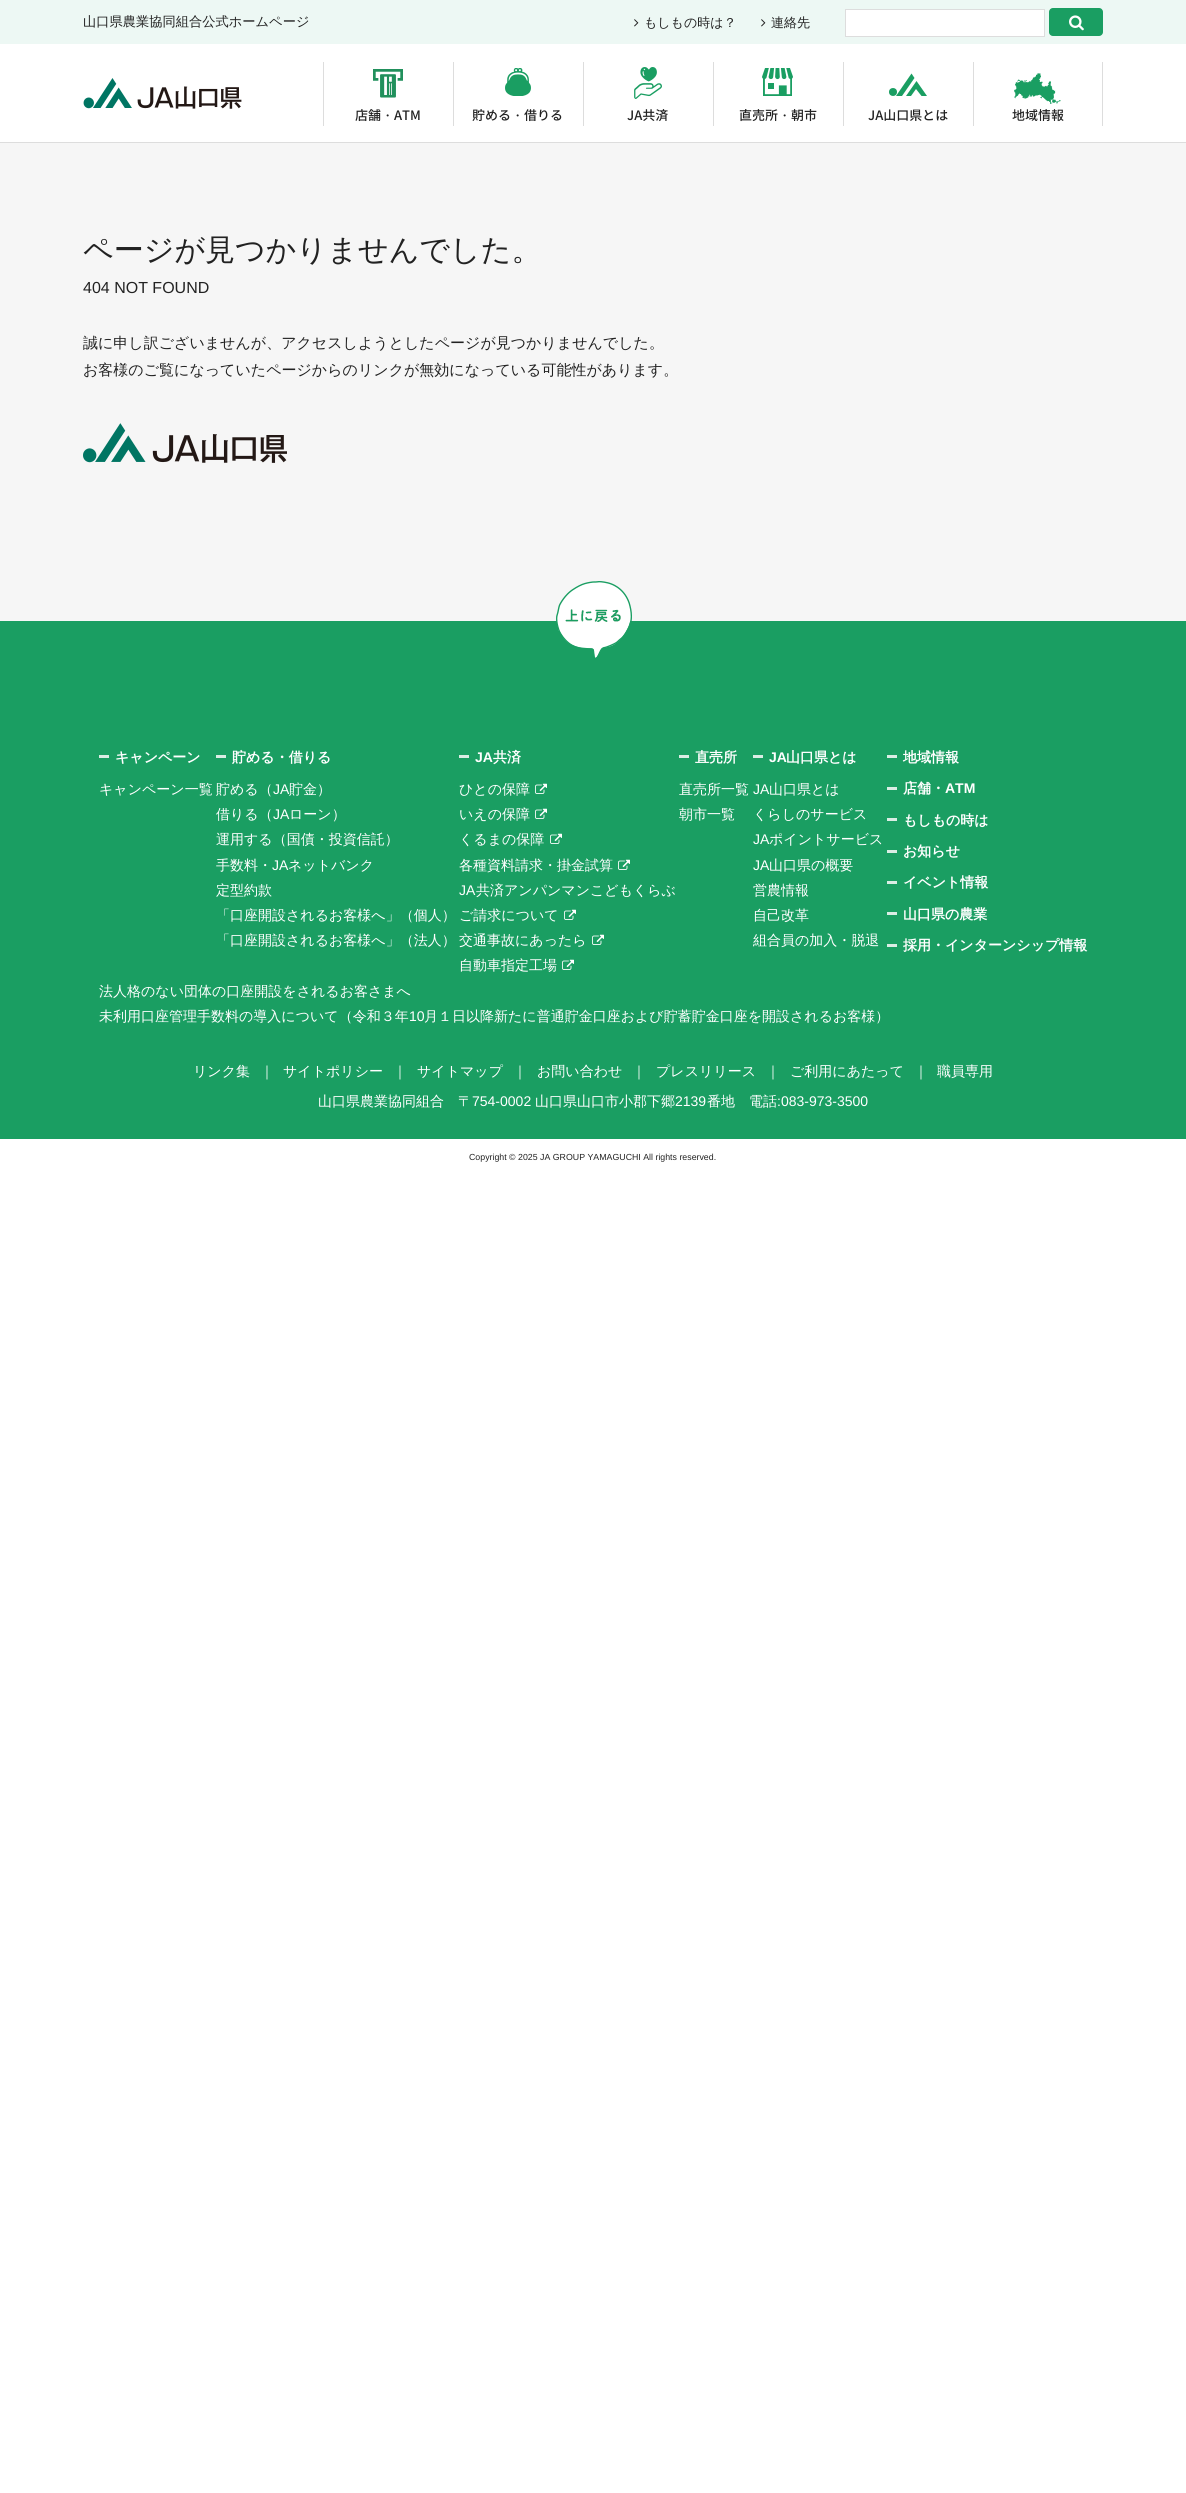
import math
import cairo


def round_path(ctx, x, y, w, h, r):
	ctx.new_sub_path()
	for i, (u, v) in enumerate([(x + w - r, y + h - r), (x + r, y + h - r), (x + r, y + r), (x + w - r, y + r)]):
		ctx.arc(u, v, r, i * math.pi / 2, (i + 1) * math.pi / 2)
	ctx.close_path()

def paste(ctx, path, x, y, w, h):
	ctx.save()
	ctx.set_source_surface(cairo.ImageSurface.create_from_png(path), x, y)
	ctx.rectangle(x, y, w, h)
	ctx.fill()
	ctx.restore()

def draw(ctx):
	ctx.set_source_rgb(1, 1, 1)
	ctx.paint()
	ctx.set_source_rgb(0.867, 0.867, 0.867)
	ctx.rectangle(0, 142, 1186, 1)
	ctx.fill()
	ctx.set_source_rgb(0.929, 0.969, 0.957)
	ctx.rectangle(0, 0, 1186, 44)
	ctx.fill()
	ctx.select_font_face('WenQuanYi Zen Hei Medium')
	ctx.set_font_size(13.25)
	ctx.set_source_rgb(0.133, 0.133, 0.133)
	ctx.move_to(83, 26)
	ctx.show_text('山口県農業協同組合公式ホームページ')
	paste(ctx, 'media/1.png', 634, 19, 5, 8)
	ctx.set_font_size(13)
	ctx.move_to(644, 27)
	ctx.show_text('もしもの時は？')
	paste(ctx, 'media/1.png', 761, 19, 5, 8)
	ctx.move_to(771, 27)
	ctx.show_text('連絡先')
	ctx.set_source_rgb(1, 1, 1)
	ctx.rectangle(845.5, 9.5, 199, 27)
	ctx.fill_preserve()
	ctx.set_source_rgb(0.867, 0.867, 0.867)
	ctx.set_line_width(1)
	ctx.stroke()
	ctx.set_source_rgb(0.102, 0.62, 0.384)
	round_path(ctx, 1049, 8, 54, 28, 4)
	ctx.fill()
	paste(ctx, 'media/2.png', 1069, 15, 15, 16)
	paste(ctx, 'media/3.png', 83, 78, 159, 31)
	ctx.set_source_rgb(0.867, 0.867, 0.867)
	ctx.rectangle(1102, 62, 1, 64)
	ctx.fill()
	paste(ctx, 'media/4.png', 373, 69, 30, 29)
	ctx.rectangle(323, 62, 1, 64)
	ctx.fill()
	ctx.select_font_face('Noto Sans CJK JP Medium')
	ctx.set_source_rgb(0.133, 0.133, 0.133)
	ctx.move_to(355, 120)
	ctx.show_text('店舗')
	ctx.select_font_face('WenQuanYi Zen Hei Medium')
	ctx.move_to(381, 120)
	ctx.show_text('・')
	ctx.select_font_face('Noto Sans CJK JP Medium')
	ctx.move_to(394, 120)
	ctx.show_text('ATM')
	paste(ctx, 'media/5.png', 505, 68, 26, 28)
	ctx.set_source_rgb(0.867, 0.867, 0.867)
	ctx.rectangle(453, 62, 1, 64)
	ctx.fill()
	ctx.set_source_rgb(0.133, 0.133, 0.133)
	ctx.move_to(472, 120)
	ctx.show_text('貯める')
	ctx.select_font_face('WenQuanYi Zen Hei Medium')
	ctx.move_to(511, 120)
	ctx.show_text('・')
	ctx.select_font_face('Noto Sans CJK JP Medium')
	ctx.move_to(524, 120)
	ctx.show_text('借りる')
	paste(ctx, 'media/6.png', 634, 67, 28, 32)
	ctx.set_source_rgb(0.867, 0.867, 0.867)
	ctx.rectangle(583, 62, 1, 64)
	ctx.fill()
	ctx.set_source_rgb(0.133, 0.133, 0.133)
	ctx.move_to(627, 120)
	ctx.show_text('JA共済')
	paste(ctx, 'media/7.png', 762, 68, 31, 28)
	ctx.set_source_rgb(0.867, 0.867, 0.867)
	ctx.rectangle(713, 62, 1, 64)
	ctx.fill()
	ctx.set_source_rgb(0.133, 0.133, 0.133)
	ctx.move_to(739, 120)
	ctx.show_text('直売所')
	ctx.select_font_face('WenQuanYi Zen Hei Medium')
	ctx.move_to(778, 120)
	ctx.show_text('・')
	ctx.select_font_face('Noto Sans CJK JP Medium')
	ctx.move_to(791, 120)
	ctx.show_text('朝市')
	ctx.set_source_rgb(0.102, 0.62, 0.384)
	ctx.new_path()
	ctx.arc(893, 92, 4, 0, 2 * math.pi)
	ctx.fill()
	ctx.new_path()
	ctx.move_to(916.5, 81)
	ctx.line_to(906, 96)
	ctx.line_to(911, 96)
	ctx.line_to(916, 89)
	ctx.line_to(921.5, 96)
	ctx.line_to(927, 96)
	ctx.close_path()
	ctx.fill()
	ctx.new_path()
	ctx.move_to(914.5, 78)
	ctx.line_to(911.5, 73.5)
	ctx.line_to(896, 96)
	ctx.line_to(902, 96)
	ctx.close_path()
	ctx.fill()
	ctx.set_source_rgb(0.867, 0.867, 0.867)
	ctx.rectangle(843, 62, 1, 64)
	ctx.fill()
	ctx.set_source_rgb(0.133, 0.133, 0.133)
	ctx.move_to(868, 120)
	ctx.show_text('JA山口県とは')
	paste(ctx, 'media/8.png', 1014, 73, 47, 31)
	ctx.set_source_rgb(0.867, 0.867, 0.867)
	ctx.rectangle(973, 62, 1, 64)
	ctx.fill()
	ctx.set_source_rgb(0.133, 0.133, 0.133)
	ctx.move_to(1012, 120)
	ctx.show_text('地域情報')
	ctx.set_source_rgb(0.961, 0.961, 0.961)
	ctx.rectangle(0, 143, 1186, 478)
	ctx.fill()
	ctx.select_font_face('WenQuanYi Zen Hei Medium')
	ctx.set_font_size(30)
	ctx.set_source_rgb(0.133, 0.133, 0.133)
	ctx.move_to(83, 260)
	ctx.show_text('ページが見つかりませんでした。')
	ctx.select_font_face('Liberation Sans')
	ctx.set_font_size(16)
	ctx.move_to(83, 293)
	ctx.show_text('404 NOT FOUND')
	ctx.select_font_face('WenQuanYi Zen Hei Medium')
	ctx.set_font_size(15)
	ctx.move_to(83, 348)
	ctx.show_text('誠に申し訳ございませんが、アクセスしようとしたページが見つかりませんでした。')
	ctx.move_to(83, 375)
	ctx.show_text('お客様のご覧になっていたページからのリンクが無効になっている可能性があります。')
	paste(ctx, 'media/9.png', 83, 423, 204, 40)
	ctx.set_source_rgb(0.102, 0.62, 0.384)
	ctx.rectangle(0, 621, 1186, 518)
	ctx.fill()
	paste(ctx, 'media/10.png', 556, 581, 76, 77)
	ctx.set_source_rgb(0.855, 0.929, 0.894)
	ctx.rectangle(99, 755, 10, 3)
	ctx.fill()
	ctx.select_font_face('WenQuanYi Zen Hei', cairo.FONT_SLANT_NORMAL, cairo.FONT_WEIGHT_BOLD)
	ctx.set_font_size(14)
	ctx.set_source_rgb(1, 1, 1)
	ctx.move_to(115, 762)
	ctx.show_text('キャンペーン')
	ctx.select_font_face('WenQuanYi Zen Hei Medium')
	ctx.move_to(99, 794)
	ctx.show_text('キャンペーン一覧')
	ctx.set_source_rgb(0.855, 0.929, 0.894)
	ctx.rectangle(216, 755, 10, 3)
	ctx.fill()
	ctx.select_font_face('WenQuanYi Zen Hei', cairo.FONT_SLANT_NORMAL, cairo.FONT_WEIGHT_BOLD)
	ctx.set_source_rgb(1, 1, 1)
	ctx.move_to(232, 762)
	ctx.show_text('貯める・借りる')
	ctx.select_font_face('WenQuanYi Zen Hei Medium')
	ctx.move_to(216, 794)
	ctx.show_text('貯める（')
	ctx.select_font_face('Liberation Sans')
	ctx.move_to(273, 794)
	ctx.show_text('JA')
	ctx.select_font_face('WenQuanYi Zen Hei Medium')
	ctx.move_to(289, 794)
	ctx.show_text('貯金）')
	ctx.move_to(216, 819)
	ctx.show_text('借りる（')
	ctx.select_font_face('Liberation Sans')
	ctx.move_to(273, 819)
	ctx.show_text('JA')
	ctx.select_font_face('WenQuanYi Zen Hei Medium')
	for x, y, s in [
		(289, 819, 'ローン）'),
		(216, 844, '運用する（国債・投資信託）'),
		(216, 870, '手数料・'),
	]:
		ctx.move_to(x, y)
		ctx.show_text(s)
	ctx.select_font_face('Liberation Sans')
	ctx.move_to(272, 870)
	ctx.show_text('JA')
	ctx.select_font_face('WenQuanYi Zen Hei Medium')
	for x, y, s in [
		(288, 870, 'ネットバンク'),
		(216, 895, '定型約款'),
		(216, 920, '「口座開設されるお客様へ」（個人）'),
		(216, 945, '「口座開設されるお客様へ」（法人）'),
	]:
		ctx.move_to(x, y)
		ctx.show_text(s)
	ctx.set_source_rgb(0.855, 0.929, 0.894)
	ctx.rectangle(459, 755, 10, 3)
	ctx.fill()
	ctx.select_font_face('Liberation Sans', cairo.FONT_SLANT_NORMAL, cairo.FONT_WEIGHT_BOLD)
	ctx.set_source_rgb(1, 1, 1)
	ctx.move_to(475, 762)
	ctx.show_text('JA')
	ctx.select_font_face('WenQuanYi Zen Hei', cairo.FONT_SLANT_NORMAL, cairo.FONT_WEIGHT_BOLD)
	ctx.move_to(493, 762)
	ctx.show_text('共済')
	ctx.select_font_face('WenQuanYi Zen Hei Medium')
	ctx.move_to(459, 794)
	ctx.show_text('ひとの保障')
	paste(ctx, 'media/11.png', 535, 783, 12, 11)
	ctx.move_to(459, 819)
	ctx.show_text('いえの保障')
	paste(ctx, 'media/11.png', 535, 808, 12, 11)
	ctx.move_to(459, 844)
	ctx.show_text('くるまの保障')
	paste(ctx, 'media/11.png', 550, 833, 12, 11)
	ctx.move_to(459, 870)
	ctx.show_text('各種資料請求・掛金試算')
	paste(ctx, 'media/11.png', 618, 859, 12, 11)
	ctx.select_font_face('Liberation Sans')
	ctx.move_to(459, 895)
	ctx.show_text('JA')
	ctx.select_font_face('WenQuanYi Zen Hei Medium')
	ctx.move_to(476, 895)
	ctx.show_text('共済アンパンマンこどもくらぶ')
	ctx.move_to(459, 920)
	ctx.show_text('ご請求について')
	paste(ctx, 'media/11.png', 564, 909, 12, 11)
	ctx.move_to(459, 945)
	ctx.show_text('交通事故にあったら')
	paste(ctx, 'media/11.png', 592, 934, 12, 11)
	ctx.move_to(459, 970)
	ctx.show_text('自動車指定工場')
	paste(ctx, 'media/11.png', 562, 959, 12, 11)
	ctx.set_source_rgb(0.855, 0.929, 0.894)
	ctx.rectangle(679, 755, 10, 3)
	ctx.fill()
	ctx.select_font_face('WenQuanYi Zen Hei', cairo.FONT_SLANT_NORMAL, cairo.FONT_WEIGHT_BOLD)
	ctx.set_source_rgb(1, 1, 1)
	ctx.move_to(695, 762)
	ctx.show_text('直売所')
	ctx.select_font_face('WenQuanYi Zen Hei Medium')
	ctx.move_to(679, 794)
	ctx.show_text('直売所一覧')
	ctx.move_to(679, 819)
	ctx.show_text('朝市一覧')
	ctx.set_source_rgb(0.855, 0.929, 0.894)
	ctx.rectangle(753, 755, 10, 3)
	ctx.fill()
	ctx.select_font_face('Liberation Sans', cairo.FONT_SLANT_NORMAL, cairo.FONT_WEIGHT_BOLD)
	ctx.set_source_rgb(1, 1, 1)
	ctx.move_to(769, 762)
	ctx.show_text('JA')
	ctx.select_font_face('WenQuanYi Zen Hei', cairo.FONT_SLANT_NORMAL, cairo.FONT_WEIGHT_BOLD)
	ctx.move_to(786, 762)
	ctx.show_text('山口県とは')
	ctx.select_font_face('Liberation Sans')
	ctx.move_to(753, 794)
	ctx.show_text('JA')
	ctx.select_font_face('WenQuanYi Zen Hei Medium')
	ctx.move_to(769, 794)
	ctx.show_text('山口県とは')
	ctx.move_to(753, 819)
	ctx.show_text('くらしのサービス')
	ctx.select_font_face('Liberation Sans')
	ctx.move_to(753, 844)
	ctx.show_text('JA')
	ctx.select_font_face('WenQuanYi Zen Hei Medium')
	ctx.move_to(769, 844)
	ctx.show_text('ポイントサービス')
	ctx.select_font_face('Liberation Sans')
	ctx.move_to(753, 870)
	ctx.show_text('JA')
	ctx.select_font_face('WenQuanYi Zen Hei Medium')
	for x, y, s in [
		(769, 870, '山口県の概要'),
		(753, 895, '営農情報'),
		(753, 920, '自己改革'),
		(753, 945, '組合員の加入・脱退'),
	]:
		ctx.move_to(x, y)
		ctx.show_text(s)
	ctx.set_source_rgb(0.855, 0.929, 0.894)
	ctx.rectangle(887, 755, 10, 3)
	ctx.fill()
	ctx.select_font_face('WenQuanYi Zen Hei', cairo.FONT_SLANT_NORMAL, cairo.FONT_WEIGHT_BOLD)
	ctx.set_source_rgb(1, 1, 1)
	ctx.move_to(903, 762)
	ctx.show_text('地域情報')
	ctx.set_source_rgb(0.855, 0.929, 0.894)
	ctx.rectangle(887, 787, 10, 3)
	ctx.fill()
	ctx.set_source_rgb(1, 1, 1)
	ctx.move_to(903, 793)
	ctx.show_text('店舗・')
	ctx.select_font_face('Liberation Sans', cairo.FONT_SLANT_NORMAL, cairo.FONT_WEIGHT_BOLD)
	ctx.move_to(945, 793)
	ctx.show_text('ATM')
	ctx.set_source_rgb(0.855, 0.929, 0.894)
	ctx.rectangle(887, 818, 10, 3)
	ctx.fill()
	ctx.select_font_face('WenQuanYi Zen Hei', cairo.FONT_SLANT_NORMAL, cairo.FONT_WEIGHT_BOLD)
	ctx.set_source_rgb(1, 1, 1)
	ctx.move_to(903, 825)
	ctx.show_text('もしもの時は')
	ctx.set_source_rgb(0.855, 0.929, 0.894)
	ctx.rectangle(887, 850, 10, 3)
	ctx.fill()
	ctx.set_source_rgb(1, 1, 1)
	ctx.move_to(903, 856)
	ctx.show_text('お知らせ')
	ctx.set_source_rgb(0.855, 0.929, 0.894)
	ctx.rectangle(887, 881, 10, 3)
	ctx.fill()
	ctx.set_source_rgb(1, 1, 1)
	ctx.move_to(903, 887)
	ctx.show_text('イベント情報')
	ctx.set_source_rgb(0.855, 0.929, 0.894)
	ctx.rectangle(887, 912, 10, 3)
	ctx.fill()
	ctx.set_source_rgb(1, 1, 1)
	ctx.move_to(903, 919)
	ctx.show_text('山口県の農業')
	ctx.set_source_rgb(0.855, 0.929, 0.894)
	ctx.rectangle(887, 944, 10, 3)
	ctx.fill()
	ctx.set_source_rgb(1, 1, 1)
	ctx.move_to(903, 950)
	ctx.show_text('採用・インターンシップ情報')
	ctx.select_font_face('WenQuanYi Zen Hei Medium')
	ctx.move_to(99, 996)
	ctx.show_text('法人格のない団体の口座開設をされるお客さまへ')
	ctx.move_to(99, 1021)
	ctx.show_text('未利用口座管理手数料の導入について（令和３年')
	ctx.select_font_face('Liberation Sans')
	ctx.move_to(409, 1021)
	ctx.show_text('10')
	ctx.select_font_face('WenQuanYi Zen Hei Medium')
	for x, y, s in [
		(424, 1021, '月１日以降新たに普通貯金口座および貯蓄貯金口座を開設されるお客様）'),
		(193, 1076, 'リンク集'),
		(260, 1076, '｜'),
		(283, 1076, 'サイトポリシー'),
		(393, 1076, '｜'),
		(417, 1076, 'サイトマップ'),
		(513, 1076, '｜'),
		(537, 1076, 'お問い合わせ'),
		(632, 1076, '｜'),
		(656, 1076, 'プレスリリース'),
		(766, 1076, '｜'),
		(790, 1076, 'ご利用にあたって'),
		(914, 1076, '｜'),
		(937, 1076, '職員専用'),
		(318, 1106, '山口県農業協同組合'),
		(458, 1106, '〒'),
	]:
		ctx.move_to(x, y)
		ctx.show_text(s)
	ctx.select_font_face('Liberation Sans')
	ctx.move_to(472, 1106)
	ctx.show_text('754-0002')
	ctx.select_font_face('WenQuanYi Zen Hei Medium')
	ctx.move_to(535, 1106)
	ctx.show_text('山口県山口市小郡下郷')
	ctx.select_font_face('Liberation Sans')
	ctx.move_to(675, 1106)
	ctx.show_text('2139')
	ctx.select_font_face('WenQuanYi Zen Hei Medium')
	ctx.move_to(707, 1106)
	ctx.show_text('番地')
	ctx.move_to(749, 1106)
	ctx.show_text('電話')
	ctx.select_font_face('Liberation Sans')
	ctx.move_to(777, 1106)
	ctx.show_text(':083-973-3500')
	ctx.set_font_size(8.8)
	ctx.set_source_rgb(0.133, 0.133, 0.133)
	ctx.move_to(469, 1160)
	ctx.show_text('Copyright © 2025 JA GROUP YAMAGUCHI All rights reserved.')


surface = cairo.ImageSurface(cairo.FORMAT_RGB24, 1186, 2493)
ctx = cairo.Context(surface)
options = cairo.FontOptions()
options.set_hint_metrics(cairo.HINT_METRICS_OFF)
options.set_hint_style(cairo.HINT_STYLE_NONE)
ctx.set_font_options(options)
ctx.set_miter_limit(4)
draw(ctx)
surface.write_to_png('image.png')
